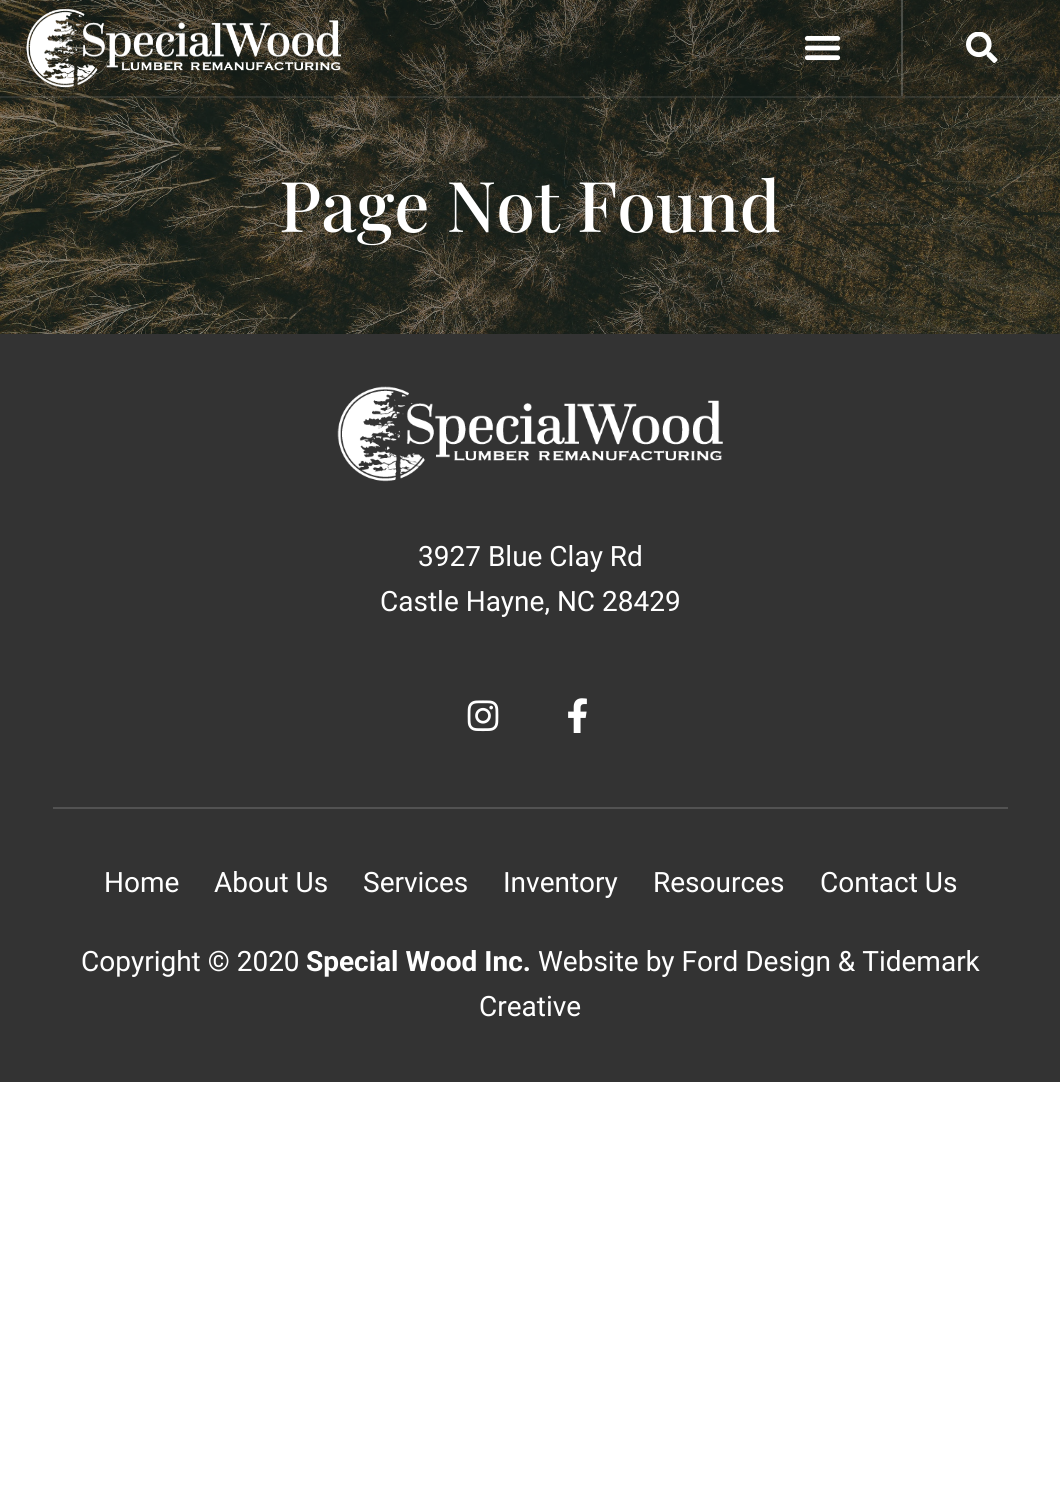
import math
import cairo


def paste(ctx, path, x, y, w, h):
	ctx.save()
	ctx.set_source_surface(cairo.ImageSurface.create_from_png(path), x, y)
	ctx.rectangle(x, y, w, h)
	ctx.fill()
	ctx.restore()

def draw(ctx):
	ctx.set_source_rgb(1, 1, 1)
	ctx.paint()
	paste(ctx, 'media/4.png', 0, 0, 1060, 334)
	ctx.set_source_rgba(0, 0, 0, 0.1)
	ctx.rectangle(0, 0, 1060, 98)
	ctx.fill()
	ctx.set_source_rgba(1, 1, 1, 0.1)
	ctx.rectangle(0, 96, 1060, 2)
	ctx.fill()
	paste(ctx, 'media/1.png', 26, 9, 315, 79)
	paste(ctx, 'media/2.png', 804, 36, 37, 25)
	ctx.set_source_rgba(1, 1, 1, 0.2)
	ctx.rectangle(901, 0, 2, 96)
	ctx.fill()
	paste(ctx, 'media/3.png', 966, 32, 32, 31)
	ctx.select_font_face('Playfair Display Medium')
	ctx.set_font_size(70)
	ctx.set_source_rgb(1, 1, 1)
	ctx.move_to(279, 232)
	ctx.show_text('Page Not Found')
	ctx.set_source_rgb(0.2, 0.2, 0.2)
	ctx.rectangle(0, 334, 1060, 748)
	ctx.fill()
	paste(ctx, 'media/5.png', 337, 386, 386, 96)
	ctx.select_font_face('Roboto')
	ctx.set_font_size(28)
	ctx.set_source_rgb(1, 1, 1)
	ctx.move_to(418, 566)
	ctx.show_text('3927 Blue Clay Rd')
	ctx.move_to(380, 611)
	ctx.show_text('Castle Hayne, NC 28429')
	paste(ctx, 'media/6.png', 467, 700, 32, 32)
	paste(ctx, 'media/7.png', 568, 698, 19, 35)
	ctx.set_source_rgb(0.322, 0.322, 0.322)
	ctx.rectangle(53, 807, 955, 2)
	ctx.fill()
	ctx.set_source_rgb(1, 1, 1)
	for x, y, s in [
		(104, 892, 'Home'),
		(214, 892, 'About Us'),
		(363, 892, 'Services'),
		(503, 892, 'Inventory'),
		(653, 892, 'Resources'),
		(820, 892, 'Contact Us'),
		(81, 971, 'Copyright © 2020'),
	]:
		ctx.move_to(x, y)
		ctx.show_text(s)
	ctx.select_font_face('Roboto', cairo.FONT_SLANT_NORMAL, cairo.FONT_WEIGHT_BOLD)
	ctx.move_to(306, 971)
	ctx.show_text('Special Wood Inc.')
	ctx.select_font_face('Roboto')
	ctx.move_to(538, 971)
	ctx.show_text('Website by Ford Design & Tidemark')
	ctx.move_to(479, 1016)
	ctx.show_text('Creative')


surface = cairo.ImageSurface(cairo.FORMAT_RGB24, 1060, 1506)
ctx = cairo.Context(surface)
options = cairo.FontOptions()
options.set_hint_metrics(cairo.HINT_METRICS_OFF)
options.set_hint_style(cairo.HINT_STYLE_NONE)
ctx.set_font_options(options)
ctx.set_miter_limit(4)
draw(ctx)
surface.write_to_png('image.png')
